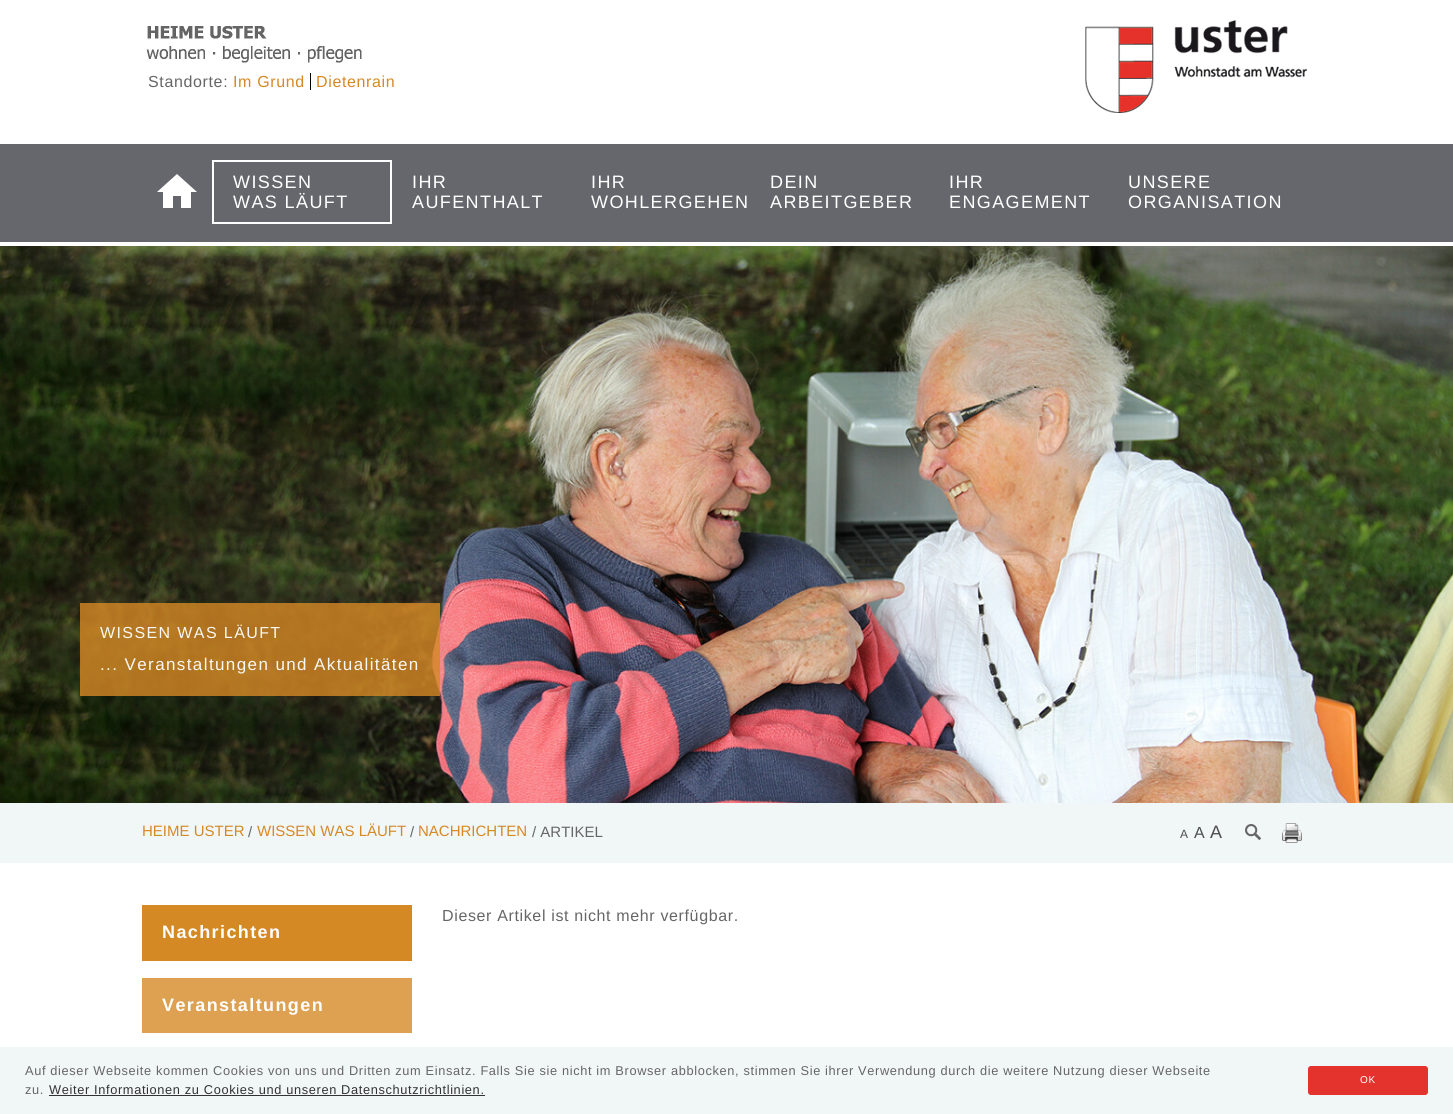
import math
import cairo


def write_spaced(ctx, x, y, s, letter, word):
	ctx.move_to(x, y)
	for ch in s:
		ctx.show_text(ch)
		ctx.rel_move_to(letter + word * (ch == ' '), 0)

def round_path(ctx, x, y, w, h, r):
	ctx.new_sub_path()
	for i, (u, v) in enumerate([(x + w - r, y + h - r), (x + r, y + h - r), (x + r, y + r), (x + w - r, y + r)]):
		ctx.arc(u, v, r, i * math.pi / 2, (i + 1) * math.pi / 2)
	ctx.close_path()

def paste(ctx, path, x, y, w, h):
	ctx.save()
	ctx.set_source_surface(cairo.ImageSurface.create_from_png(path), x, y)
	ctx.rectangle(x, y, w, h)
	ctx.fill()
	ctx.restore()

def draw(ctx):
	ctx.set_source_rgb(1, 1, 1)
	ctx.paint()
	paste(ctx, 'media/1.png', 146, 26, 216, 37)
	ctx.select_font_face('Liberation Sans')
	ctx.set_font_size(16)
	ctx.set_source_rgb(0.4, 0.4, 0.4)
	write_spaced(ctx, 148, 87, 'Standorte:', 0.64, 0)
	ctx.set_source_rgb(0.835, 0.537, 0.145)
	write_spaced(ctx, 233, 87, 'Im Grund', 0.64, 0)
	ctx.set_source_rgb(0, 0, 0)
	ctx.rectangle(310, 73, 1, 17)
	ctx.fill()
	ctx.set_source_rgb(0.835, 0.537, 0.145)
	write_spaced(ctx, 316, 87, 'Dietenrain', 0.64, 0)
	paste(ctx, 'media/2.png', 1085, 20, 222, 93)
	ctx.set_source_rgb(0.4, 0.404, 0.424)
	ctx.rectangle(0, 144, 1453, 98)
	ctx.fill()
	paste(ctx, 'media/3.png', 157, 174, 40, 34)
	ctx.rectangle(213, 161, 178, 62)
	ctx.set_source_rgb(1, 1, 1)
	ctx.stroke()
	ctx.set_font_size(18)
	for x, y, s in [
		(233, 188, 'WISSEN'),
		(233, 208, 'WAS LÄUFT'),
		(412, 188, 'IHR'),
		(412, 208, 'AUFENTHALT'),
		(591, 188, 'IHR'),
		(591, 208, 'WOHLERGEHEN'),
		(770, 188, 'DEIN'),
		(770, 208, 'ARBEITGEBER'),
		(949, 188, 'IHR'),
		(949, 208, 'ENGAGEMENT'),
		(1128, 188, 'UNSERE'),
		(1128, 208, 'ORGANISATION'),
	]:
		write_spaced(ctx, x, y, s, 1.4, 0)
	paste(ctx, 'media/4.png', 0, 246, 1453, 557)
	ctx.set_source_rgba(0.835, 0.537, 0.145, 0.8)
	ctx.rectangle(80, 603, 360, 93)
	ctx.fill()
	ctx.set_font_size(16)
	ctx.set_source_rgb(0.98, 0.969, 0.949)
	write_spaced(ctx, 100, 638, 'WISSEN WAS LÄUFT', 1.4, 0)
	ctx.set_font_size(17)
	write_spaced(ctx, 100, 670, '... Veranstaltungen und Aktualitäten', 1.4, 0)
	ctx.set_source_rgb(0.945, 0.961, 0.965)
	ctx.rectangle(0, 803, 1453, 60)
	ctx.fill()
	ctx.set_font_size(15)
	ctx.set_source_rgb(0.835, 0.537, 0.145)
	ctx.move_to(142, 836)
	ctx.show_text('HEIME USTER')
	ctx.set_source_rgb(0.4, 0.4, 0.4)
	ctx.move_to(248, 837)
	ctx.show_text('/')
	ctx.set_source_rgb(0.835, 0.537, 0.145)
	ctx.move_to(257, 836)
	ctx.show_text('WISSEN WAS LÄUFT')
	ctx.set_source_rgb(0.4, 0.4, 0.4)
	ctx.move_to(410, 837)
	ctx.show_text('/')
	ctx.set_source_rgb(0.835, 0.537, 0.145)
	ctx.move_to(418, 836)
	ctx.show_text('NACHRICHTEN')
	ctx.set_source_rgb(0.4, 0.4, 0.4)
	ctx.move_to(532, 837)
	ctx.show_text('/ ARTIKEL')
	ctx.set_font_size(12)
	ctx.set_source_rgb(0.306, 0.306, 0.306)
	write_spaced(ctx, 1180, 838, 'A', 0.64, 0)
	ctx.set_font_size(16)
	write_spaced(ctx, 1194, 838, 'A', 0.64, 0)
	ctx.set_font_size(18)
	write_spaced(ctx, 1210, 838, 'A', 0.64, 0)
	paste(ctx, 'media/5.png', 1245, 824, 16, 16)
	paste(ctx, 'media/6.png', 1282, 823, 20, 20)
	ctx.set_font_size(16)
	ctx.set_source_rgb(0.4, 0.4, 0.4)
	write_spaced(ctx, 442, 921, 'Dieser Artikel ist nicht mehr verfügbar.', 0.64, 0)
	ctx.set_source_rgb(0.835, 0.537, 0.145)
	ctx.rectangle(142, 905, 270, 56)
	ctx.fill()
	ctx.select_font_face('Liberation Sans', cairo.FONT_SLANT_NORMAL, cairo.FONT_WEIGHT_BOLD)
	ctx.set_font_size(18)
	ctx.set_source_rgb(1, 1, 1)
	write_spaced(ctx, 162, 938, 'Nachrichten', 1.4, 0)
	ctx.set_source_rgb(0.867, 0.631, 0.318)
	ctx.rectangle(142, 978, 270, 55)
	ctx.fill()
	ctx.set_source_rgb(1, 1, 1)
	write_spaced(ctx, 162, 1011, 'Veranstaltungen', 1.4, 0)
	ctx.set_source_rgb(0.945, 0.961, 0.965)
	ctx.rectangle(0, 1047, 1453, 67)
	ctx.fill()
	ctx.select_font_face('Liberation Sans')
	ctx.set_font_size(12.8)
	ctx.set_source_rgb(0.4, 0.4, 0.4)
	write_spaced(ctx, 25, 1075, 'Auf dieser Webseite kommen Cookies von uns und Dritten zum Einsatz. Falls Sie sie nicht im Browser abblocken, stimmen Sie ihrer Verwendung durch die weitere Nutzung dieser Webseite', 0.64, 0)
	write_spaced(ctx, 25, 1094, 'zu.', 0.64, 0)
	ctx.set_source_rgb(0.2, 0.2, 0.2)
	write_spaced(ctx, 49, 1094, 'Weiter Informationen zu Cookies und unseren Datenschutzrichtlinien.', 0.64, 0)
	ctx.rectangle(49, 1095, 436, 1)
	ctx.fill()
	ctx.set_source_rgb(0.894, 0.2, 0.176)
	round_path(ctx, 1308.5, 1066.5, 119, 28, 2.5)
	ctx.fill_preserve()
	ctx.set_line_width(1)
	ctx.stroke()
	ctx.set_font_size(10)
	ctx.set_source_rgb(1, 1, 1)
	write_spaced(ctx, 1360, 1083, 'OK', 0.64, 0)


surface = cairo.ImageSurface(cairo.FORMAT_RGB24, 1453, 1114)
ctx = cairo.Context(surface)
options = cairo.FontOptions()
options.set_hint_metrics(cairo.HINT_METRICS_OFF)
options.set_hint_style(cairo.HINT_STYLE_NONE)
ctx.set_font_options(options)
ctx.set_miter_limit(4)
draw(ctx)
surface.write_to_png('image.png')
